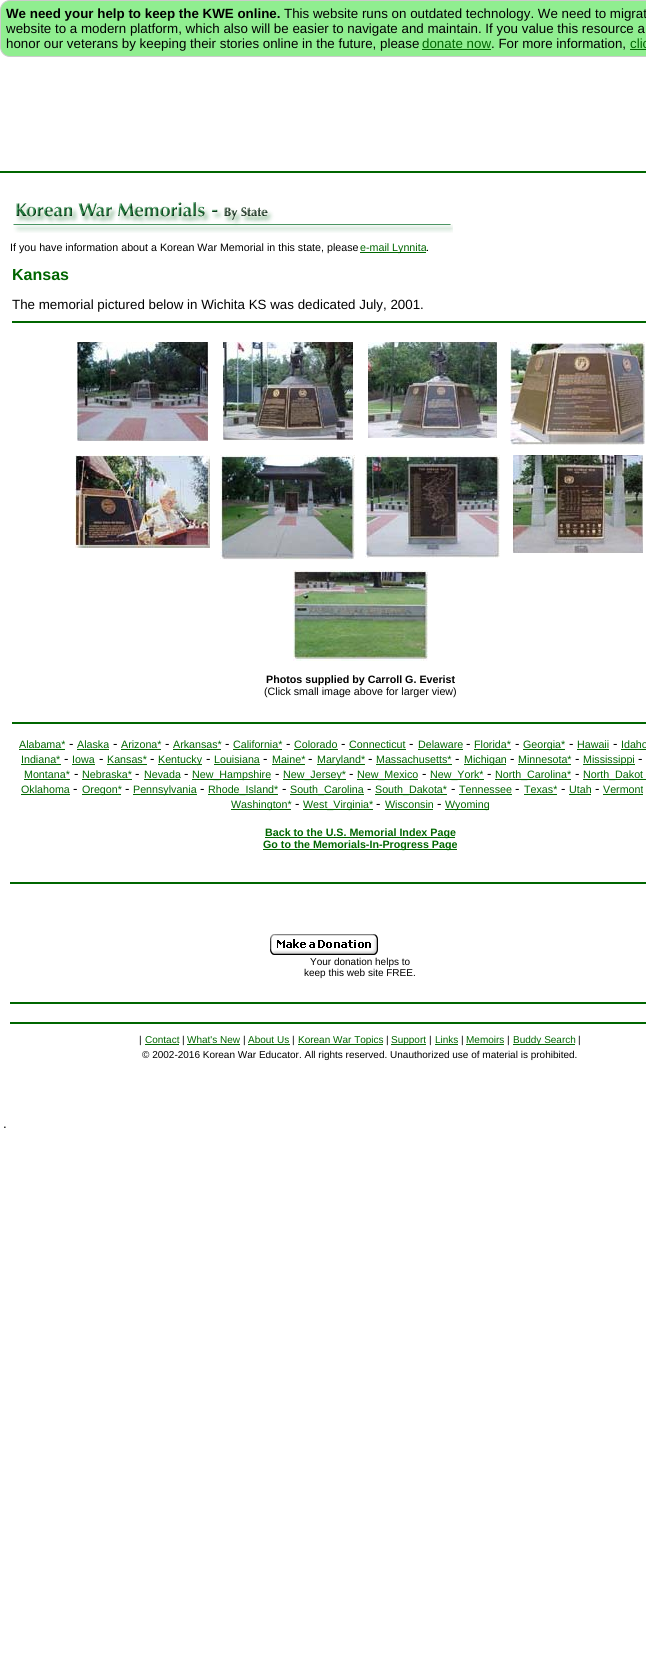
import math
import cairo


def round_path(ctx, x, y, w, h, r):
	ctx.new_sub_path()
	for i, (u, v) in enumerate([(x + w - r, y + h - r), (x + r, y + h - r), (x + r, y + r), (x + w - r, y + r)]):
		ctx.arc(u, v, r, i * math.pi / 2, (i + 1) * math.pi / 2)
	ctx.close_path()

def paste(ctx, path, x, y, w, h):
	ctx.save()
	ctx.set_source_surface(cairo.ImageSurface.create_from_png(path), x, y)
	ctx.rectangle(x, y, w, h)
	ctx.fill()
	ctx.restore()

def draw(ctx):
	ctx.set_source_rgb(1, 1, 1)
	ctx.paint()
	ctx.set_source_rgb(0.565, 0.933, 0.565)
	round_path(ctx, 0.5, 0.5, 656, 56, 9.5)
	ctx.fill_preserve()
	ctx.set_source_rgb(0.8, 0.8, 0.8)
	ctx.set_line_width(1)
	ctx.stroke()
	ctx.select_font_face('Liberation Sans', cairo.FONT_SLANT_NORMAL, cairo.FONT_WEIGHT_BOLD)
	ctx.set_font_size(13.35)
	ctx.set_source_rgb(0, 0, 0)
	ctx.move_to(6, 18)
	ctx.show_text('We need your help to keep the KWE online.')
	ctx.select_font_face('Liberation Sans')
	for x, y, s in [
		(284, 18, 'This website runs on outdated technology. We need to migrat'),
		(6, 33, 'website to a modern platform, which also will be easier to navigate and maintain. If you value this resource a'),
		(6, 48, 'honor our veterans by keeping their stories online in the future, please'),
	]:
		ctx.move_to(x, y)
		ctx.show_text(s)
	ctx.set_source_rgb(0, 0.4, 0)
	ctx.move_to(422, 48)
	ctx.show_text('donate now')
	ctx.rectangle(422, 49, 69, 1)
	ctx.fill()
	ctx.set_source_rgb(0, 0, 0)
	ctx.move_to(491, 48)
	ctx.show_text('. For more information,')
	ctx.set_source_rgb(0, 0.4, 0)
	ctx.move_to(630, 48)
	ctx.show_text('clic')
	ctx.rectangle(630, 49, 16, 1)
	ctx.fill()
	ctx.rectangle(0, 171, 646, 2)
	ctx.fill()
	paste(ctx, 'media/1.png', 13, 202, 440, 31)
	ctx.set_font_size(10.7)
	ctx.set_source_rgb(0, 0, 0)
	ctx.move_to(10, 251)
	ctx.show_text('If you have information about a Korean War Memorial in this state, please')
	ctx.set_source_rgb(0, 0.4, 0)
	ctx.rectangle(360, 252, 66, 1)
	ctx.fill()
	ctx.move_to(360, 251)
	ctx.show_text('e-mail Lynnita')
	ctx.set_source_rgb(0, 0, 0)
	ctx.move_to(426, 251)
	ctx.show_text('.')
	ctx.select_font_face('Liberation Sans', cairo.FONT_SLANT_NORMAL, cairo.FONT_WEIGHT_BOLD)
	ctx.set_font_size(16)
	ctx.set_source_rgb(0, 0.4, 0)
	ctx.move_to(12, 280)
	ctx.show_text('Kansas')
	ctx.select_font_face('Liberation Sans')
	ctx.set_font_size(13.35)
	ctx.set_source_rgb(0, 0, 0)
	ctx.move_to(12, 309)
	ctx.show_text('The memorial pictured below in Wichita KS was dedicated July, 2001.')
	ctx.set_source_rgb(0, 0.4, 0)
	ctx.rectangle(12, 321, 634, 2)
	ctx.fill()
	paste(ctx, 'media/2.png', 77, 342, 131, 99)
	paste(ctx, 'media/3.png', 223, 342, 130, 98)
	paste(ctx, 'media/4.png', 368, 342, 129, 96)
	paste(ctx, 'media/5.png', 510, 342, 135, 103)
	paste(ctx, 'media/6.png', 75, 455, 135, 93)
	paste(ctx, 'media/7.png', 220, 455, 135, 105)
	paste(ctx, 'media/8.png', 365, 455, 135, 103)
	paste(ctx, 'media/9.png', 513, 455, 130, 98)
	paste(ctx, 'media/10.png', 293, 570, 135, 91)
	ctx.select_font_face('Liberation Sans', cairo.FONT_SLANT_NORMAL, cairo.FONT_WEIGHT_BOLD)
	ctx.set_font_size(10.7)
	ctx.set_source_rgb(0, 0, 0)
	ctx.move_to(266, 683)
	ctx.show_text('Photos supplied by Carroll G. Everist')
	ctx.select_font_face('Liberation Sans')
	ctx.move_to(264, 695)
	ctx.show_text('(Click small image above for larger view)')
	ctx.set_source_rgb(0, 0.4, 0)
	ctx.rectangle(12, 722, 634, 2)
	ctx.fill()
	ctx.move_to(19, 748)
	ctx.show_text('Alabama*')
	ctx.rectangle(19, 749, 46, 1)
	ctx.fill()
	ctx.set_font_size(13.35)
	ctx.set_source_rgb(0, 0, 0)
	ctx.move_to(69, 748)
	ctx.show_text('-')
	ctx.set_font_size(10.7)
	ctx.set_source_rgb(0, 0.4, 0)
	ctx.move_to(77, 748)
	ctx.show_text('Alaska')
	ctx.rectangle(77, 749, 32, 1)
	ctx.fill()
	ctx.set_font_size(13.35)
	ctx.set_source_rgb(0, 0, 0)
	ctx.move_to(113, 748)
	ctx.show_text('-')
	ctx.set_font_size(10.7)
	ctx.set_source_rgb(0, 0.4, 0)
	ctx.move_to(121, 748)
	ctx.show_text('Arizona*')
	ctx.rectangle(121, 749, 40, 1)
	ctx.fill()
	ctx.set_font_size(13.35)
	ctx.set_source_rgb(0, 0, 0)
	ctx.move_to(165, 748)
	ctx.show_text('-')
	ctx.set_font_size(10.7)
	ctx.set_source_rgb(0, 0.4, 0)
	ctx.move_to(173, 748)
	ctx.show_text('Arkansas*')
	ctx.rectangle(173, 749, 48, 1)
	ctx.fill()
	ctx.set_font_size(13.35)
	ctx.set_source_rgb(0, 0, 0)
	ctx.move_to(225, 748)
	ctx.show_text('-')
	ctx.set_font_size(10.7)
	ctx.set_source_rgb(0, 0.4, 0)
	ctx.move_to(233, 748)
	ctx.show_text('California*')
	ctx.rectangle(233, 749, 49, 1)
	ctx.fill()
	ctx.set_font_size(13.35)
	ctx.set_source_rgb(0, 0, 0)
	ctx.move_to(286, 748)
	ctx.show_text('-')
	ctx.set_font_size(10.7)
	ctx.set_source_rgb(0, 0.4, 0)
	ctx.move_to(294, 748)
	ctx.show_text('Colorado')
	ctx.rectangle(294, 749, 44, 1)
	ctx.fill()
	ctx.set_font_size(13.35)
	ctx.set_source_rgb(0, 0, 0)
	ctx.move_to(341, 748)
	ctx.show_text('-')
	ctx.set_font_size(10.7)
	ctx.set_source_rgb(0, 0.4, 0)
	ctx.move_to(349, 748)
	ctx.show_text('Connecticut')
	ctx.rectangle(349, 749, 57, 1)
	ctx.fill()
	ctx.set_font_size(13.35)
	ctx.set_source_rgb(0, 0, 0)
	ctx.move_to(409, 748)
	ctx.show_text('-')
	ctx.set_font_size(10.7)
	ctx.set_source_rgb(0, 0.4, 0)
	ctx.move_to(418, 748)
	ctx.show_text('Delaware')
	ctx.rectangle(418, 749, 45, 1)
	ctx.fill()
	ctx.set_font_size(13.35)
	ctx.set_source_rgb(0, 0, 0)
	ctx.move_to(466, 748)
	ctx.show_text('-')
	ctx.set_font_size(10.7)
	ctx.set_source_rgb(0, 0.4, 0)
	ctx.move_to(474, 748)
	ctx.show_text('Florida*')
	ctx.rectangle(474, 749, 37, 1)
	ctx.fill()
	ctx.set_font_size(13.35)
	ctx.set_source_rgb(0, 0, 0)
	ctx.move_to(515, 748)
	ctx.show_text('-')
	ctx.set_source_rgb(0, 0.4, 0)
	ctx.rectangle(523, 749, 42, 1)
	ctx.fill()
	ctx.set_font_size(10.7)
	ctx.move_to(523, 748)
	ctx.show_text('Georgia*')
	ctx.set_font_size(13.35)
	ctx.set_source_rgb(0, 0, 0)
	ctx.move_to(569, 748)
	ctx.show_text('-')
	ctx.set_font_size(10.7)
	ctx.set_source_rgb(0, 0.4, 0)
	ctx.move_to(577, 748)
	ctx.show_text('Hawaii')
	ctx.rectangle(577, 749, 32, 1)
	ctx.fill()
	ctx.set_font_size(13.35)
	ctx.set_source_rgb(0, 0, 0)
	ctx.move_to(613, 748)
	ctx.show_text('-')
	ctx.set_font_size(10.7)
	ctx.set_source_rgb(0, 0.4, 0)
	ctx.move_to(621, 748)
	ctx.show_text('Idaho')
	ctx.rectangle(621, 749, 25, 1)
	ctx.fill()
	ctx.move_to(21, 763)
	ctx.show_text('Indiana*')
	ctx.rectangle(21, 764, 40, 1)
	ctx.fill()
	ctx.set_font_size(13.35)
	ctx.set_source_rgb(0, 0, 0)
	ctx.move_to(64, 763)
	ctx.show_text('-')
	ctx.set_font_size(10.7)
	ctx.set_source_rgb(0, 0.4, 0)
	ctx.move_to(72, 763)
	ctx.show_text('Iowa')
	ctx.rectangle(72, 764, 23, 1)
	ctx.fill()
	ctx.set_font_size(13.35)
	ctx.set_source_rgb(0, 0, 0)
	ctx.move_to(99, 763)
	ctx.show_text('-')
	ctx.set_font_size(10.7)
	ctx.set_source_rgb(0, 0.4, 0)
	ctx.move_to(107, 763)
	ctx.show_text('Kansas*')
	ctx.rectangle(107, 764, 40, 1)
	ctx.fill()
	ctx.set_font_size(13.35)
	ctx.set_source_rgb(0, 0, 0)
	ctx.move_to(150, 763)
	ctx.show_text('-')
	ctx.set_source_rgb(0, 0.4, 0)
	ctx.rectangle(158, 764, 44, 1)
	ctx.fill()
	ctx.set_font_size(10.7)
	ctx.move_to(158, 763)
	ctx.show_text('Kentucky')
	ctx.set_font_size(13.35)
	ctx.set_source_rgb(0, 0, 0)
	ctx.move_to(206, 763)
	ctx.show_text('-')
	ctx.set_font_size(10.7)
	ctx.set_source_rgb(0, 0.4, 0)
	ctx.move_to(214, 763)
	ctx.show_text('Louisiana')
	ctx.rectangle(214, 764, 46, 1)
	ctx.fill()
	ctx.set_font_size(13.35)
	ctx.set_source_rgb(0, 0, 0)
	ctx.move_to(263, 763)
	ctx.show_text('-')
	ctx.set_font_size(10.7)
	ctx.set_source_rgb(0, 0.4, 0)
	ctx.move_to(272, 763)
	ctx.show_text('Maine*')
	ctx.rectangle(272, 764, 33, 1)
	ctx.fill()
	ctx.set_font_size(13.35)
	ctx.set_source_rgb(0, 0, 0)
	ctx.move_to(308, 763)
	ctx.show_text('-')
	ctx.set_source_rgb(0, 0.4, 0)
	ctx.rectangle(317, 764, 48, 1)
	ctx.fill()
	ctx.set_font_size(10.7)
	ctx.move_to(317, 763)
	ctx.show_text('Maryland*')
	ctx.set_font_size(13.35)
	ctx.set_source_rgb(0, 0, 0)
	ctx.move_to(368, 763)
	ctx.show_text('-')
	ctx.set_font_size(10.7)
	ctx.set_source_rgb(0, 0.4, 0)
	ctx.move_to(376, 763)
	ctx.show_text('Massachusetts*')
	ctx.rectangle(376, 764, 76, 1)
	ctx.fill()
	ctx.set_font_size(13.35)
	ctx.set_source_rgb(0, 0, 0)
	ctx.move_to(455, 763)
	ctx.show_text('-')
	ctx.set_source_rgb(0, 0.4, 0)
	ctx.rectangle(464, 764, 42, 1)
	ctx.fill()
	ctx.set_font_size(10.7)
	ctx.move_to(464, 763)
	ctx.show_text('Michigan')
	ctx.set_font_size(13.35)
	ctx.set_source_rgb(0, 0, 0)
	ctx.move_to(510, 763)
	ctx.show_text('-')
	ctx.set_font_size(10.7)
	ctx.set_source_rgb(0, 0.4, 0)
	ctx.move_to(518, 763)
	ctx.show_text('Minnesota*')
	ctx.rectangle(518, 764, 53, 1)
	ctx.fill()
	ctx.set_font_size(13.35)
	ctx.set_source_rgb(0, 0, 0)
	ctx.move_to(575, 763)
	ctx.show_text('-')
	ctx.set_source_rgb(0, 0.4, 0)
	ctx.rectangle(583, 764, 52, 1)
	ctx.fill()
	ctx.set_font_size(10.7)
	ctx.move_to(583, 763)
	ctx.show_text('Mississippi')
	ctx.set_font_size(13.35)
	ctx.set_source_rgb(0, 0, 0)
	ctx.move_to(638, 763)
	ctx.show_text('-')
	ctx.set_font_size(10.7)
	ctx.set_source_rgb(0, 0.4, 0)
	ctx.move_to(24, 778)
	ctx.show_text('Montana*')
	ctx.rectangle(24, 779, 46, 1)
	ctx.fill()
	ctx.set_font_size(13.35)
	ctx.set_source_rgb(0, 0, 0)
	ctx.move_to(74, 778)
	ctx.show_text('-')
	ctx.set_font_size(10.7)
	ctx.set_source_rgb(0, 0.4, 0)
	ctx.move_to(82, 778)
	ctx.show_text('Nebraska*')
	ctx.rectangle(82, 779, 50, 1)
	ctx.fill()
	ctx.set_font_size(13.35)
	ctx.set_source_rgb(0, 0, 0)
	ctx.move_to(135, 778)
	ctx.show_text('-')
	ctx.set_font_size(10.7)
	ctx.set_source_rgb(0, 0.4, 0)
	ctx.move_to(144, 778)
	ctx.show_text('Nevada')
	ctx.rectangle(144, 779, 36, 1)
	ctx.fill()
	ctx.set_font_size(13.35)
	ctx.set_source_rgb(0, 0, 0)
	ctx.move_to(184, 778)
	ctx.show_text('-')
	ctx.set_source_rgb(0, 0.4, 0)
	ctx.rectangle(192, 779, 79, 1)
	ctx.fill()
	ctx.set_font_size(10.7)
	ctx.move_to(192, 778)
	ctx.show_text('New_Hampshire')
	ctx.set_font_size(13.35)
	ctx.set_source_rgb(0, 0, 0)
	ctx.move_to(275, 778)
	ctx.show_text('-')
	ctx.set_source_rgb(0, 0.4, 0)
	ctx.rectangle(283, 779, 63, 1)
	ctx.fill()
	ctx.set_font_size(10.7)
	ctx.move_to(283, 778)
	ctx.show_text('New_Jersey*')
	ctx.set_font_size(13.35)
	ctx.set_source_rgb(0, 0, 0)
	ctx.move_to(349, 778)
	ctx.show_text('-')
	ctx.set_source_rgb(0, 0.4, 0)
	ctx.rectangle(357, 779, 61, 1)
	ctx.fill()
	ctx.set_font_size(10.7)
	ctx.move_to(357, 778)
	ctx.show_text('New_Mexico')
	ctx.set_font_size(13.35)
	ctx.set_source_rgb(0, 0, 0)
	ctx.move_to(422, 778)
	ctx.show_text('-')
	ctx.set_source_rgb(0, 0.4, 0)
	ctx.rectangle(430, 779, 54, 1)
	ctx.fill()
	ctx.set_font_size(10.7)
	ctx.move_to(430, 778)
	ctx.show_text('New_York*')
	ctx.set_font_size(13.35)
	ctx.set_source_rgb(0, 0, 0)
	ctx.move_to(487, 778)
	ctx.show_text('-')
	ctx.set_source_rgb(0, 0.4, 0)
	ctx.rectangle(495, 779, 76, 1)
	ctx.fill()
	ctx.set_font_size(10.7)
	ctx.move_to(495, 778)
	ctx.show_text('North_Carolina*')
	ctx.set_font_size(13.35)
	ctx.set_source_rgb(0, 0, 0)
	ctx.move_to(575, 778)
	ctx.show_text('-')
	ctx.set_source_rgb(0, 0.4, 0)
	ctx.rectangle(583, 779, 63, 1)
	ctx.fill()
	ctx.set_font_size(10.7)
	ctx.move_to(583, 778)
	ctx.show_text('North_Dakot')
	ctx.move_to(21, 793)
	ctx.show_text('Oklahoma')
	ctx.rectangle(21, 794, 49, 1)
	ctx.fill()
	ctx.set_font_size(13.35)
	ctx.set_source_rgb(0, 0, 0)
	ctx.move_to(73, 793)
	ctx.show_text('-')
	ctx.set_source_rgb(0, 0.4, 0)
	ctx.rectangle(82, 794, 39, 1)
	ctx.fill()
	ctx.set_font_size(10.7)
	ctx.move_to(82, 793)
	ctx.show_text('Oregon*')
	ctx.set_font_size(13.35)
	ctx.set_source_rgb(0, 0, 0)
	ctx.move_to(125, 793)
	ctx.show_text('-')
	ctx.set_source_rgb(0, 0.4, 0)
	ctx.rectangle(133, 794, 64, 1)
	ctx.fill()
	ctx.set_font_size(10.7)
	ctx.move_to(133, 793)
	ctx.show_text('Pennsylvania')
	ctx.set_font_size(13.35)
	ctx.set_source_rgb(0, 0, 0)
	ctx.move_to(200, 793)
	ctx.show_text('-')
	ctx.set_source_rgb(0, 0.4, 0)
	ctx.rectangle(208, 794, 70, 1)
	ctx.fill()
	ctx.set_font_size(10.7)
	ctx.move_to(208, 793)
	ctx.show_text('Rhode_Island*')
	ctx.set_font_size(13.35)
	ctx.set_source_rgb(0, 0, 0)
	ctx.move_to(282, 793)
	ctx.show_text('-')
	ctx.set_source_rgb(0, 0.4, 0)
	ctx.rectangle(290, 794, 74, 1)
	ctx.fill()
	ctx.set_font_size(10.7)
	ctx.move_to(290, 793)
	ctx.show_text('South_Carolina')
	ctx.set_font_size(13.35)
	ctx.set_source_rgb(0, 0, 0)
	ctx.move_to(367, 793)
	ctx.show_text('-')
	ctx.set_source_rgb(0, 0.4, 0)
	ctx.rectangle(375, 794, 72, 1)
	ctx.fill()
	ctx.set_font_size(10.7)
	ctx.move_to(375, 793)
	ctx.show_text('South_Dakota*')
	ctx.set_font_size(13.35)
	ctx.set_source_rgb(0, 0, 0)
	ctx.move_to(451, 793)
	ctx.show_text('-')
	ctx.set_font_size(10.7)
	ctx.set_source_rgb(0, 0.4, 0)
	ctx.move_to(459, 793)
	ctx.show_text('Tennessee')
	ctx.rectangle(459, 794, 53, 1)
	ctx.fill()
	ctx.set_font_size(13.35)
	ctx.set_source_rgb(0, 0, 0)
	ctx.move_to(515, 793)
	ctx.show_text('-')
	ctx.set_font_size(10.7)
	ctx.set_source_rgb(0, 0.4, 0)
	ctx.move_to(524, 793)
	ctx.show_text('Texas*')
	ctx.rectangle(524, 794, 33, 1)
	ctx.fill()
	ctx.set_font_size(13.35)
	ctx.set_source_rgb(0, 0, 0)
	ctx.move_to(561, 793)
	ctx.show_text('-')
	ctx.set_font_size(10.7)
	ctx.set_source_rgb(0, 0.4, 0)
	ctx.move_to(569, 793)
	ctx.show_text('Utah')
	ctx.rectangle(569, 794, 22, 1)
	ctx.fill()
	ctx.set_font_size(13.35)
	ctx.set_source_rgb(0, 0, 0)
	ctx.move_to(595, 793)
	ctx.show_text('-')
	ctx.set_font_size(10.7)
	ctx.set_source_rgb(0, 0.4, 0)
	ctx.move_to(603, 793)
	ctx.show_text('Vermont')
	ctx.rectangle(603, 794, 40, 1)
	ctx.fill()
	ctx.rectangle(231, 809, 60, 1)
	ctx.fill()
	ctx.move_to(231, 808)
	ctx.show_text('Washington*')
	ctx.set_font_size(13.35)
	ctx.set_source_rgb(0, 0, 0)
	ctx.move_to(295, 808)
	ctx.show_text('-')
	ctx.set_source_rgb(0, 0.4, 0)
	ctx.rectangle(303, 809, 70, 1)
	ctx.fill()
	ctx.set_font_size(10.7)
	ctx.move_to(303, 808)
	ctx.show_text('West_Virginia*')
	ctx.set_font_size(13.35)
	ctx.set_source_rgb(0, 0, 0)
	ctx.move_to(376, 808)
	ctx.show_text('-')
	ctx.set_font_size(10.7)
	ctx.set_source_rgb(0, 0.4, 0)
	ctx.move_to(385, 808)
	ctx.show_text('Wisconsin')
	ctx.rectangle(385, 809, 48, 1)
	ctx.fill()
	ctx.set_font_size(13.35)
	ctx.set_source_rgb(0, 0, 0)
	ctx.move_to(437, 808)
	ctx.show_text('-')
	ctx.set_source_rgb(0, 0.4, 0)
	ctx.rectangle(445, 809, 44, 1)
	ctx.fill()
	ctx.set_font_size(10.7)
	ctx.move_to(445, 808)
	ctx.show_text('Wyoming')
	ctx.rectangle(265, 837, 190, 1)
	ctx.fill()
	ctx.select_font_face('Liberation Sans', cairo.FONT_SLANT_NORMAL, cairo.FONT_WEIGHT_BOLD)
	ctx.move_to(265, 836)
	ctx.show_text('Back to the U.S. Memorial Index Page')
	ctx.rectangle(263, 849, 194, 1)
	ctx.fill()
	ctx.move_to(263, 848)
	ctx.show_text('Go to the Memorials-In-Progress Page')
	ctx.rectangle(10, 882, 636, 2)
	ctx.fill()
	paste(ctx, 'media/11.png', 270, 934, 108, 21)
	ctx.select_font_face('Liberation Sans')
	ctx.set_font_size(10)
	ctx.set_source_rgb(0, 0, 0)
	ctx.move_to(310, 965)
	ctx.show_text('Your donation helps to')
	ctx.move_to(304, 976)
	ctx.show_text('keep this web site FREE.')
	ctx.set_source_rgb(0, 0.4, 0)
	ctx.rectangle(10, 1002, 636, 2)
	ctx.fill()
	ctx.rectangle(10, 1022, 636, 2)
	ctx.fill()
	ctx.set_source_rgb(0, 0, 0)
	ctx.move_to(139, 1043)
	ctx.show_text('|')
	ctx.set_source_rgb(0, 0.4, 0)
	ctx.move_to(145, 1043)
	ctx.show_text('Contact')
	ctx.rectangle(145, 1044, 34, 1)
	ctx.fill()
	ctx.set_source_rgb(0, 0, 0)
	ctx.move_to(182, 1043)
	ctx.show_text('|')
	ctx.set_source_rgb(0, 0.4, 0)
	ctx.move_to(187, 1043)
	ctx.show_text('What\'s New')
	ctx.rectangle(187, 1044, 53, 1)
	ctx.fill()
	ctx.set_source_rgb(0, 0, 0)
	ctx.move_to(243, 1043)
	ctx.show_text('|')
	ctx.set_source_rgb(0, 0.4, 0)
	ctx.move_to(248, 1043)
	ctx.show_text('About Us')
	ctx.rectangle(248, 1044, 42, 1)
	ctx.fill()
	ctx.set_source_rgb(0, 0, 0)
	ctx.move_to(292, 1043)
	ctx.show_text('|')
	ctx.set_source_rgb(0, 0.4, 0)
	ctx.rectangle(298, 1044, 85, 1)
	ctx.fill()
	ctx.move_to(298, 1043)
	ctx.show_text('Korean War Topics')
	ctx.set_source_rgb(0, 0, 0)
	ctx.move_to(386, 1043)
	ctx.show_text('|')
	ctx.set_source_rgb(0, 0.4, 0)
	ctx.rectangle(391, 1044, 35, 1)
	ctx.fill()
	ctx.move_to(391, 1043)
	ctx.show_text('Support')
	ctx.set_source_rgb(0, 0, 0)
	ctx.move_to(429, 1043)
	ctx.show_text('|')
	ctx.set_source_rgb(0, 0.4, 0)
	ctx.move_to(435, 1043)
	ctx.show_text('Links')
	ctx.rectangle(435, 1044, 23, 1)
	ctx.fill()
	ctx.set_source_rgb(0, 0, 0)
	ctx.move_to(461, 1043)
	ctx.show_text('|')
	ctx.set_source_rgb(0, 0.4, 0)
	ctx.move_to(466, 1043)
	ctx.show_text('Memoirs')
	ctx.rectangle(466, 1044, 38, 1)
	ctx.fill()
	ctx.set_source_rgb(0, 0, 0)
	ctx.move_to(507, 1043)
	ctx.show_text('|')
	ctx.set_source_rgb(0, 0.4, 0)
	ctx.rectangle(513, 1044, 62, 1)
	ctx.fill()
	ctx.move_to(513, 1043)
	ctx.show_text('Buddy Search')
	ctx.set_source_rgb(0, 0, 0)
	ctx.move_to(578, 1043)
	ctx.show_text('|')
	ctx.move_to(142, 1058)
	ctx.show_text('© 2002-2016 Korean War Educator. All rights reserved. Unauthorized use of material is prohibited.')
	ctx.set_font_size(13.35)
	ctx.move_to(3, 1128)
	ctx.show_text('.')


surface = cairo.ImageSurface(cairo.FORMAT_RGB24, 646, 1671)
ctx = cairo.Context(surface)
options = cairo.FontOptions()
options.set_hint_metrics(cairo.HINT_METRICS_OFF)
options.set_hint_style(cairo.HINT_STYLE_NONE)
ctx.set_font_options(options)
ctx.set_miter_limit(4)
draw(ctx)
surface.write_to_png('image.png')
